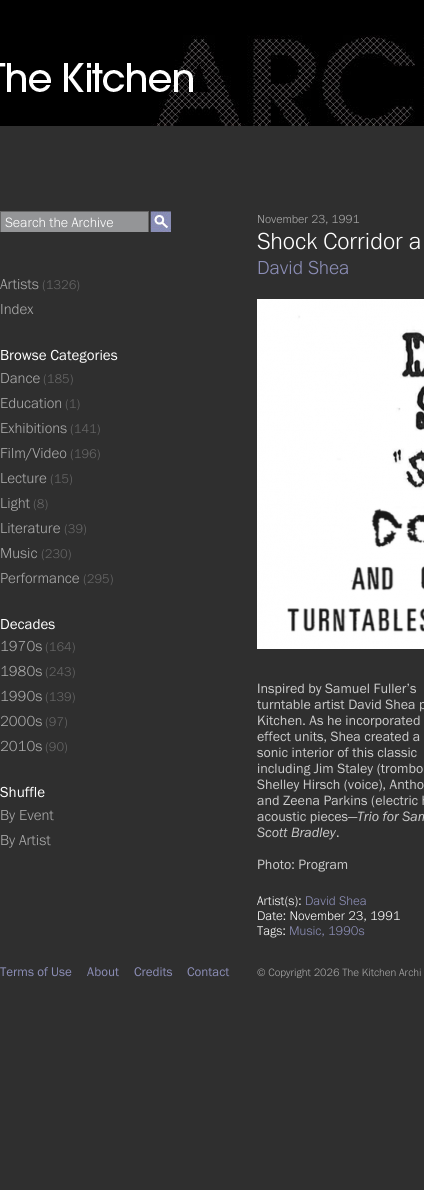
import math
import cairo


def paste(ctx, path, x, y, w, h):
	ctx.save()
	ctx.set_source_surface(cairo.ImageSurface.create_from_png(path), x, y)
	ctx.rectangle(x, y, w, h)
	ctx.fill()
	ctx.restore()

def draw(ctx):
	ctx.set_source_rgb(0.184, 0.184, 0.184)
	ctx.paint()
	ctx.set_source_rgb(0, 0, 0)
	ctx.rectangle(0, 0, 424, 126)
	ctx.fill()
	paste(ctx, 'media/2.png', 151, 35, 273, 91)
	paste(ctx, 'media/1.png', 0, 63, 193, 29)
	ctx.set_source_rgb(0.58, 0.584, 0.592)
	ctx.rectangle(1, 212, 147, 20)
	ctx.fill()
	ctx.set_source_rgb(0.4, 0.4, 0.4)
	ctx.rectangle(0, 211, 149, 1)
	ctx.rectangle(148, 211, 1, 21)
	ctx.rectangle(0, 211, 1, 21)
	ctx.fill()
	ctx.select_font_face('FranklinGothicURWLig')
	ctx.set_font_size(14)
	ctx.set_source_rgb(1, 1, 1)
	ctx.move_to(5, 227)
	ctx.show_text('Search the Archive')
	paste(ctx, 'media/3.png', 150, 211, 21, 21)
	ctx.set_font_size(15)
	ctx.set_source_rgb(0.667, 0.667, 0.667)
	ctx.move_to(0, 289)
	ctx.show_text('Artists')
	ctx.set_font_size(13)
	ctx.set_source_rgb(0.4, 0.4, 0.4)
	ctx.move_to(42, 289)
	ctx.show_text('(1326)')
	ctx.set_font_size(15)
	ctx.set_source_rgb(0.667, 0.667, 0.667)
	ctx.move_to(0, 314)
	ctx.show_text('Index')
	ctx.select_font_face('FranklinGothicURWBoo')
	ctx.set_source_rgb(1, 1, 1)
	ctx.move_to(0, 360)
	ctx.show_text('Browse Categories')
	ctx.select_font_face('FranklinGothicURWLig')
	ctx.set_source_rgb(0.667, 0.667, 0.667)
	ctx.move_to(0, 383)
	ctx.show_text('Dance')
	ctx.set_font_size(13)
	ctx.set_source_rgb(0.4, 0.4, 0.4)
	ctx.move_to(43, 383)
	ctx.show_text('(185)')
	ctx.set_font_size(15)
	ctx.set_source_rgb(0.667, 0.667, 0.667)
	ctx.move_to(0, 408)
	ctx.show_text('Education')
	ctx.set_font_size(13)
	ctx.set_source_rgb(0.4, 0.4, 0.4)
	ctx.move_to(65, 408)
	ctx.show_text('(1)')
	ctx.set_font_size(15)
	ctx.set_source_rgb(0.667, 0.667, 0.667)
	ctx.move_to(0, 433)
	ctx.show_text('Exhibitions')
	ctx.set_font_size(13)
	ctx.set_source_rgb(0.4, 0.4, 0.4)
	ctx.move_to(70, 433)
	ctx.show_text('(141)')
	ctx.set_font_size(15)
	ctx.set_source_rgb(0.667, 0.667, 0.667)
	ctx.move_to(0, 458)
	ctx.show_text('Film/Video')
	ctx.set_font_size(13)
	ctx.set_source_rgb(0.4, 0.4, 0.4)
	ctx.move_to(70, 458)
	ctx.show_text('(196)')
	ctx.set_font_size(15)
	ctx.set_source_rgb(0.667, 0.667, 0.667)
	ctx.move_to(0, 483)
	ctx.show_text('Lecture')
	ctx.set_font_size(13)
	ctx.set_source_rgb(0.4, 0.4, 0.4)
	ctx.move_to(50, 483)
	ctx.show_text('(15)')
	ctx.set_font_size(15)
	ctx.set_source_rgb(0.667, 0.667, 0.667)
	ctx.move_to(0, 508)
	ctx.show_text('Light')
	ctx.set_font_size(13)
	ctx.set_source_rgb(0.4, 0.4, 0.4)
	ctx.move_to(33, 508)
	ctx.show_text('(8)')
	ctx.set_font_size(15)
	ctx.set_source_rgb(0.667, 0.667, 0.667)
	ctx.move_to(0, 533)
	ctx.show_text('Literature')
	ctx.set_font_size(13)
	ctx.set_source_rgb(0.4, 0.4, 0.4)
	ctx.move_to(64, 533)
	ctx.show_text('(39)')
	ctx.set_font_size(15)
	ctx.set_source_rgb(0.667, 0.667, 0.667)
	ctx.move_to(0, 558)
	ctx.show_text('Music')
	ctx.set_font_size(13)
	ctx.set_source_rgb(0.4, 0.4, 0.4)
	ctx.move_to(41, 558)
	ctx.show_text('(230)')
	ctx.set_font_size(15)
	ctx.set_source_rgb(0.667, 0.667, 0.667)
	ctx.move_to(0, 583)
	ctx.show_text('Performance')
	ctx.set_font_size(13)
	ctx.set_source_rgb(0.4, 0.4, 0.4)
	ctx.move_to(83, 583)
	ctx.show_text('(295)')
	ctx.select_font_face('FranklinGothicURWBoo')
	ctx.set_font_size(15)
	ctx.set_source_rgb(1, 1, 1)
	ctx.move_to(0, 629)
	ctx.show_text('Decades')
	ctx.select_font_face('FranklinGothicURWLig')
	ctx.set_source_rgb(0.667, 0.667, 0.667)
	ctx.move_to(0, 651)
	ctx.show_text('1970s')
	ctx.set_font_size(13)
	ctx.set_source_rgb(0.4, 0.4, 0.4)
	ctx.move_to(45, 651)
	ctx.show_text('(164)')
	ctx.set_font_size(15)
	ctx.set_source_rgb(0.667, 0.667, 0.667)
	ctx.move_to(0, 676)
	ctx.show_text('1980s')
	ctx.set_font_size(13)
	ctx.set_source_rgb(0.4, 0.4, 0.4)
	ctx.move_to(45, 676)
	ctx.show_text('(243)')
	ctx.set_font_size(15)
	ctx.set_source_rgb(0.667, 0.667, 0.667)
	ctx.move_to(0, 701)
	ctx.show_text('1990s')
	ctx.set_font_size(13)
	ctx.set_source_rgb(0.4, 0.4, 0.4)
	ctx.move_to(45, 701)
	ctx.show_text('(139)')
	ctx.set_font_size(15)
	ctx.set_source_rgb(0.667, 0.667, 0.667)
	ctx.move_to(0, 726)
	ctx.show_text('2000s')
	ctx.set_font_size(13)
	ctx.set_source_rgb(0.4, 0.4, 0.4)
	ctx.move_to(45, 726)
	ctx.show_text('(97)')
	ctx.set_font_size(15)
	ctx.set_source_rgb(0.667, 0.667, 0.667)
	ctx.move_to(0, 751)
	ctx.show_text('2010s')
	ctx.set_font_size(13)
	ctx.set_source_rgb(0.4, 0.4, 0.4)
	ctx.move_to(45, 751)
	ctx.show_text('(90)')
	ctx.select_font_face('FranklinGothicURWBoo')
	ctx.set_font_size(15)
	ctx.set_source_rgb(1, 1, 1)
	ctx.move_to(0, 797)
	ctx.show_text('Shuffle')
	ctx.select_font_face('FranklinGothicURWLig')
	ctx.set_source_rgb(0.667, 0.667, 0.667)
	ctx.move_to(0, 820)
	ctx.show_text('By Event')
	ctx.move_to(0, 845)
	ctx.show_text('By Artist')
	ctx.set_font_size(12)
	ctx.move_to(257, 223)
	ctx.show_text('November 23, 1991')
	ctx.set_font_size(24)
	ctx.set_source_rgb(1, 1, 1)
	ctx.move_to(257, 249)
	ctx.show_text('Shock Corridor a')
	ctx.set_font_size(19.5)
	ctx.set_source_rgb(0.549, 0.557, 0.718)
	ctx.move_to(257, 274)
	ctx.show_text('David Shea')
	paste(ctx, 'media/4.png', 257, 299, 167, 350)
	ctx.select_font_face('FranklinGothicURWBoo')
	ctx.set_font_size(14)
	ctx.set_source_rgb(0.8, 0.8, 0.8)
	for x, y, s in [
		(257, 693, 'Inspired by Samuel Fuller’s'),
		(257, 709, 'turntable artist David Shea p'),
		(257, 725, 'Kitchen. As he incorporated'),
		(257, 741, 'effect units, Shea created a'),
		(257, 757, 'sonic interior of this classic'),
		(257, 773, 'including Jim Staley (trombo'),
		(257, 789, 'Shelley Hirsch (voice), Antho'),
		(257, 805, 'and Zeena Parkins (electric h'),
		(257, 821, 'acoustic pieces—'),
	]:
		ctx.move_to(x, y)
		ctx.show_text(s)
	ctx.select_font_face('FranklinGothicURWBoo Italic', cairo.FONT_SLANT_ITALIC)
	ctx.move_to(357, 821)
	ctx.show_text('Trio for Sam')
	ctx.move_to(257, 837)
	ctx.show_text('Scott Bradley')
	ctx.select_font_face('FranklinGothicURWBoo')
	ctx.move_to(336, 837)
	ctx.show_text('.')
	ctx.move_to(257, 869)
	ctx.show_text('Photo: Program')
	ctx.select_font_face('FranklinGothicURWLig')
	ctx.set_font_size(13)
	ctx.set_source_rgb(1, 1, 1)
	ctx.move_to(257, 905)
	ctx.show_text('Artist(s):')
	ctx.set_source_rgb(0.549, 0.557, 0.718)
	ctx.move_to(305, 905)
	ctx.show_text('David Shea')
	ctx.set_source_rgb(1, 1, 1)
	ctx.move_to(257, 920)
	ctx.show_text('Date: November 23, 1991')
	ctx.move_to(257, 935)
	ctx.show_text('Tags:')
	ctx.set_source_rgb(0.549, 0.557, 0.718)
	ctx.move_to(289, 935)
	ctx.show_text('Music, 1990s')
	ctx.select_font_face('FranklinGothicURWBoo')
	for x, y, s in [
		(0, 976, 'Terms of Use'),
		(87, 976, 'About'),
		(134, 976, 'Credits'),
		(187, 976, 'Contact'),
	]:
		ctx.move_to(x, y)
		ctx.show_text(s)
	ctx.select_font_face('FranklinGothicURWLig')
	ctx.set_font_size(11)
	ctx.set_source_rgb(0.667, 0.667, 0.667)
	ctx.move_to(257, 976)
	ctx.show_text('© Copyright 2026 The Kitchen Archi')


surface = cairo.ImageSurface(cairo.FORMAT_RGB24, 424, 1190)
ctx = cairo.Context(surface)
options = cairo.FontOptions()
options.set_hint_metrics(cairo.HINT_METRICS_OFF)
options.set_hint_style(cairo.HINT_STYLE_NONE)
ctx.set_font_options(options)
ctx.set_miter_limit(4)
draw(ctx)
surface.write_to_png('image.png')
